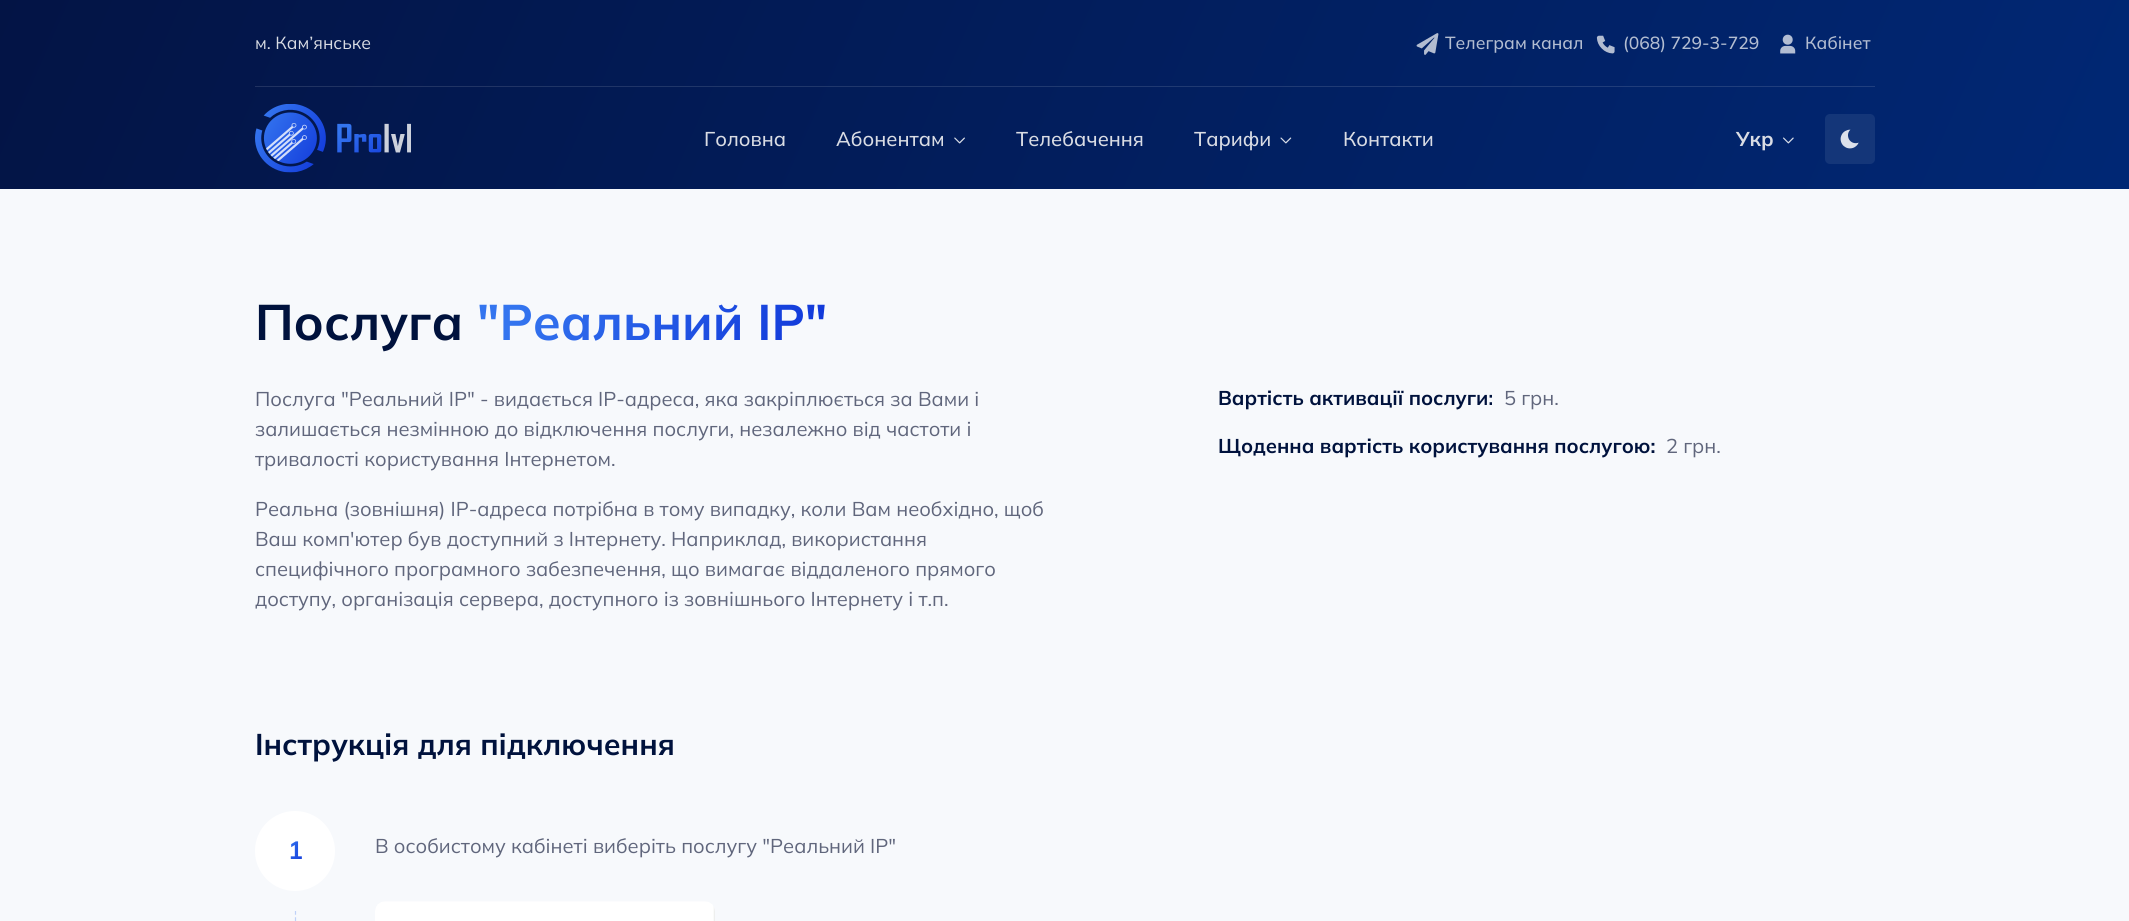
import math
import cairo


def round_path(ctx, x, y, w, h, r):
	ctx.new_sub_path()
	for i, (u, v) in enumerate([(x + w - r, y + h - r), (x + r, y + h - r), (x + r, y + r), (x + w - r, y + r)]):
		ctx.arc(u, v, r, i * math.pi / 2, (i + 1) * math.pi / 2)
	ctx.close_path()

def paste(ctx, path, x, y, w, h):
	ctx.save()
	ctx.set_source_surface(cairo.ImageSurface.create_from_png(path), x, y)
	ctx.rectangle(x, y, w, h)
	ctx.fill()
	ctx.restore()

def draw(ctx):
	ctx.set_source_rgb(0.965, 0.976, 0.988)
	ctx.paint()
	gradient = cairo.LinearGradient(141, -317, 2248, 621)
	gradient.add_color_stop_rgba(0, 0.012, 0.078, 0.271, 1)
	gradient.add_color_stop_rgba(1, 0, 0.165, 0.482, 1)
	ctx.set_source(gradient)
	ctx.rectangle(0, 0, 2129, 189)
	ctx.fill()
	gradient = cairo.LinearGradient(141, -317, 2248, 621)
	gradient.add_color_stop_rgba(0, 0.129, 0.188, 0.357, 1)
	gradient.add_color_stop_rgba(1, 0.122, 0.267, 0.545, 1)
	ctx.set_source(gradient)
	ctx.rectangle(255, 86, 1620, 1)
	ctx.fill()
	ctx.select_font_face('Mulish')
	ctx.set_font_size(17.5)
	ctx.set_source_rgb(0.851, 0.863, 0.894)
	ctx.move_to(255, 49)
	ctx.show_text('м. Кам’янське')
	paste(ctx, 'media/1.png', 1416, 33, 23, 22)
	ctx.select_font_face('Mulish Medium')
	ctx.set_source_rgb(0.702, 0.741, 0.82)
	ctx.move_to(1445, 49)
	ctx.show_text('Телеграм канал')
	paste(ctx, 'media/2.png', 1596, 35, 19, 19)
	ctx.move_to(1623, 49)
	ctx.show_text('(068) 729-3-729')
	paste(ctx, 'media/3.png', 1780, 34, 16, 20)
	ctx.move_to(1805, 49)
	ctx.show_text('Кабінет')
	paste(ctx, 'media/4.png', 255, 104, 156, 69)
	ctx.set_font_size(20)
	ctx.set_source_rgb(0.851, 0.863, 0.894)
	ctx.move_to(704, 146)
	ctx.show_text('Головна')
	ctx.move_to(836, 146)
	ctx.show_text('Абонентам')
	paste(ctx, 'media/5.png', 954, 137, 11, 7)
	ctx.move_to(1016, 146)
	ctx.show_text('Телебачення')
	ctx.move_to(1194, 146)
	ctx.show_text('Тарифи')
	paste(ctx, 'media/6.png', 1280, 137, 12, 7)
	ctx.move_to(1343, 146)
	ctx.show_text('Контакти')
	ctx.select_font_face('Mulish', cairo.FONT_SLANT_NORMAL, cairo.FONT_WEIGHT_BOLD)
	ctx.move_to(1736, 146)
	ctx.show_text('Укр')
	paste(ctx, 'media/7.png', 1783, 137, 11, 7)
	ctx.set_source_rgb(0.082, 0.212, 0.475)
	round_path(ctx, 1825, 114, 50, 50, 5)
	ctx.fill()
	paste(ctx, 'media/8.png', 1840, 129, 19, 20)
	ctx.set_font_size(50)
	ctx.set_source_rgb(0, 0.071, 0.239)
	ctx.move_to(255, 340)
	ctx.show_text('Послуга')
	gradient = cairo.LinearGradient(507, 238, 803, 408)
	gradient.add_color_stop_rgba(0.13, 0.204, 0.459, 0.937, 1)
	gradient.add_color_stop_rgba(1, 0.055, 0.2, 0.847, 1)
	ctx.set_source(gradient)
	ctx.move_to(477, 340)
	ctx.show_text('"Реальний IP"')
	ctx.select_font_face('Mulish')
	ctx.set_font_size(20)
	ctx.set_source_rgb(0.376, 0.4, 0.486)
	for x, y, s in [
		(255, 406, 'Послуга "Реальний IP" - видається IP-адреса, яка закріплюється за Вами і'),
		(255, 436, 'залишається незмінною до відключення послуги, незалежно від частоти і'),
		(255, 466, 'тривалості користування Інтернетом.'),
		(255, 516, 'Реальна (зовнішня) IP-адреса потрібна в тому випадку, коли Вам необхідно, щоб'),
		(255, 546, 'Ваш комп\'ютер був доступний з Інтернету. Наприклад, використання'),
		(255, 576, 'специфічного програмного забезпечення, що вимагає віддаленого прямого'),
		(255, 606, 'доступу, організація сервера, доступного із зовнішнього Інтернету і т.п.'),
	]:
		ctx.move_to(x, y)
		ctx.show_text(s)
	ctx.select_font_face('Mulish', cairo.FONT_SLANT_NORMAL, cairo.FONT_WEIGHT_BOLD)
	ctx.set_source_rgb(0, 0.071, 0.239)
	ctx.move_to(1218, 405)
	ctx.show_text('Вартість активації послуги:')
	ctx.select_font_face('Mulish')
	ctx.set_source_rgb(0.376, 0.4, 0.486)
	ctx.move_to(1504, 405)
	ctx.show_text('5 грн.')
	ctx.select_font_face('Mulish', cairo.FONT_SLANT_NORMAL, cairo.FONT_WEIGHT_BOLD)
	ctx.set_source_rgb(0, 0.071, 0.239)
	ctx.move_to(1218, 453)
	ctx.show_text('Щоденна вартість користування послугою:')
	ctx.select_font_face('Mulish')
	ctx.set_source_rgb(0.376, 0.4, 0.486)
	ctx.move_to(1666, 453)
	ctx.show_text('2 грн.')
	ctx.select_font_face('Mulish', cairo.FONT_SLANT_NORMAL, cairo.FONT_WEIGHT_BOLD)
	ctx.set_font_size(30)
	ctx.set_source_rgb(0, 0.071, 0.239)
	ctx.move_to(255, 755)
	ctx.show_text('Інструкція для підключення')
	ctx.set_source_rgb(1, 1, 1)
	ctx.new_path()
	ctx.arc(295, 851, 40, 0, 2 * math.pi)
	ctx.fill()
	ctx.set_font_size(25)
	gradient = cairo.LinearGradient(281, 843, 309, 859)
	gradient.add_color_stop_rgba(0.13, 0.204, 0.459, 0.937, 1)
	gradient.add_color_stop_rgba(1, 0.055, 0.2, 0.847, 1)
	ctx.set_source(gradient)
	ctx.move_to(288, 859)
	ctx.show_text('1')
	ctx.select_font_face('Mulish')
	ctx.set_font_size(20)
	ctx.set_source_rgb(0.376, 0.4, 0.486)
	ctx.move_to(375, 853)
	ctx.show_text('В особистому кабінеті виберіть послугу "Реальний IP"')
	paste(ctx, 'media/9.png', 375, 901, 340, 20)
	ctx.new_path()
	ctx.move_to(295.5, 911)
	ctx.line_to(295.5, 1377.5)
	ctx.set_source_rgb(0.749, 0.82, 0.969)
	ctx.set_line_width(1.2)
	ctx.set_dash([3.75, 2.5])
	ctx.stroke()


surface = cairo.ImageSurface(cairo.FORMAT_RGB24, 2129, 921)
ctx = cairo.Context(surface)
options = cairo.FontOptions()
options.set_hint_metrics(cairo.HINT_METRICS_OFF)
options.set_hint_style(cairo.HINT_STYLE_NONE)
ctx.set_font_options(options)
ctx.set_miter_limit(4)
draw(ctx)
surface.write_to_png('image.png')
